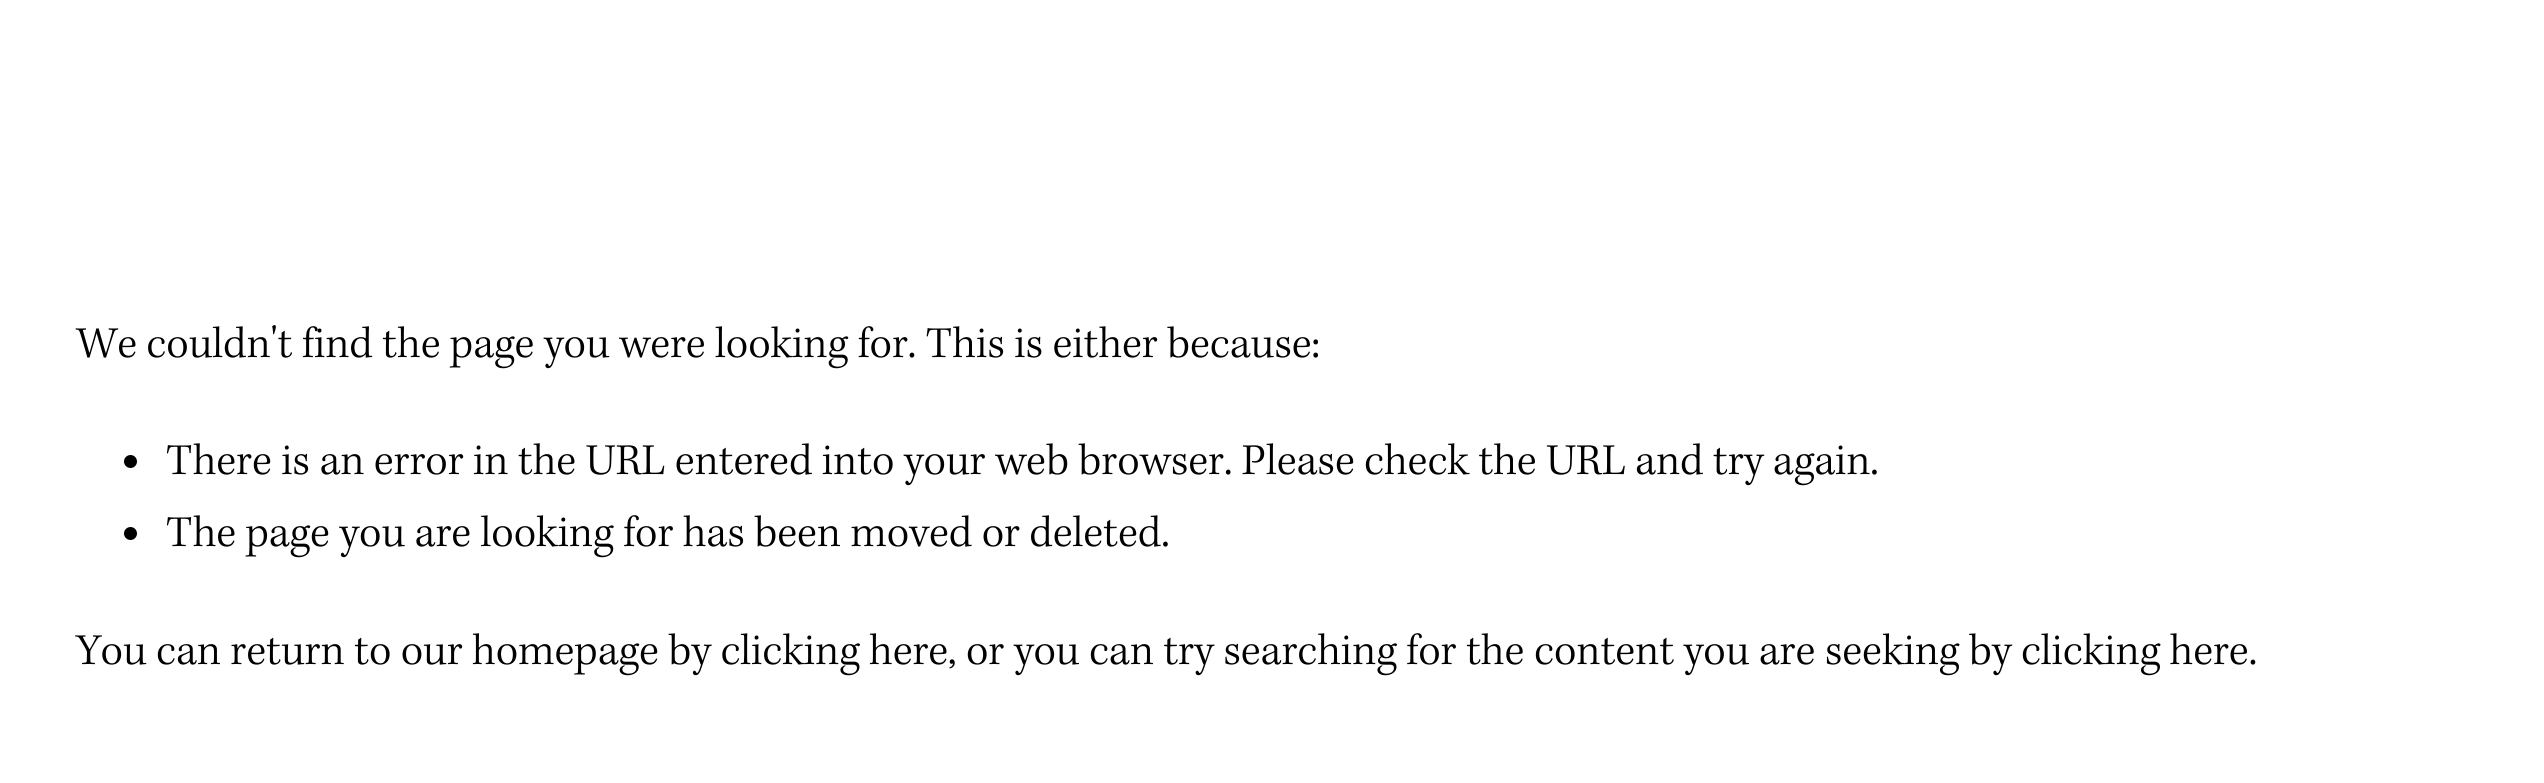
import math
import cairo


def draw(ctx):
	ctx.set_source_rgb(1, 1, 1)
	ctx.paint()
	ctx.select_font_face('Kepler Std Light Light')
	ctx.set_font_size(45.15)
	ctx.set_source_rgb(0, 0, 0)
	ctx.move_to(76, 357)
	ctx.show_text('We couldn\'t find the page you were looking for. This is either because:')
	ctx.new_path()
	ctx.arc(130.5, 461.5, 6.5, 0, 2 * math.pi)
	ctx.fill()
	ctx.move_to(166, 474)
	ctx.show_text('There is an error in the URL entered into your web browser. Please check the URL and try again.')
	ctx.new_path()
	ctx.arc(130.5, 533.5, 6.5, 0, 2 * math.pi)
	ctx.fill()
	for x, y, s in [
		(166, 546, 'The page you are looking for has been moved or deleted.'),
		(76, 664, 'You can return to our homepage by clicking here, or you can try searching for the'),
		(1534, 664, 'content you are seeking by clicking here.'),
	]:
		ctx.move_to(x, y)
		ctx.show_text(s)


surface = cairo.ImageSurface(cairo.FORMAT_RGB24, 2544, 783)
ctx = cairo.Context(surface)
options = cairo.FontOptions()
options.set_hint_metrics(cairo.HINT_METRICS_OFF)
options.set_hint_style(cairo.HINT_STYLE_NONE)
ctx.set_font_options(options)
ctx.set_miter_limit(4)
draw(ctx)
surface.write_to_png('image.png')
